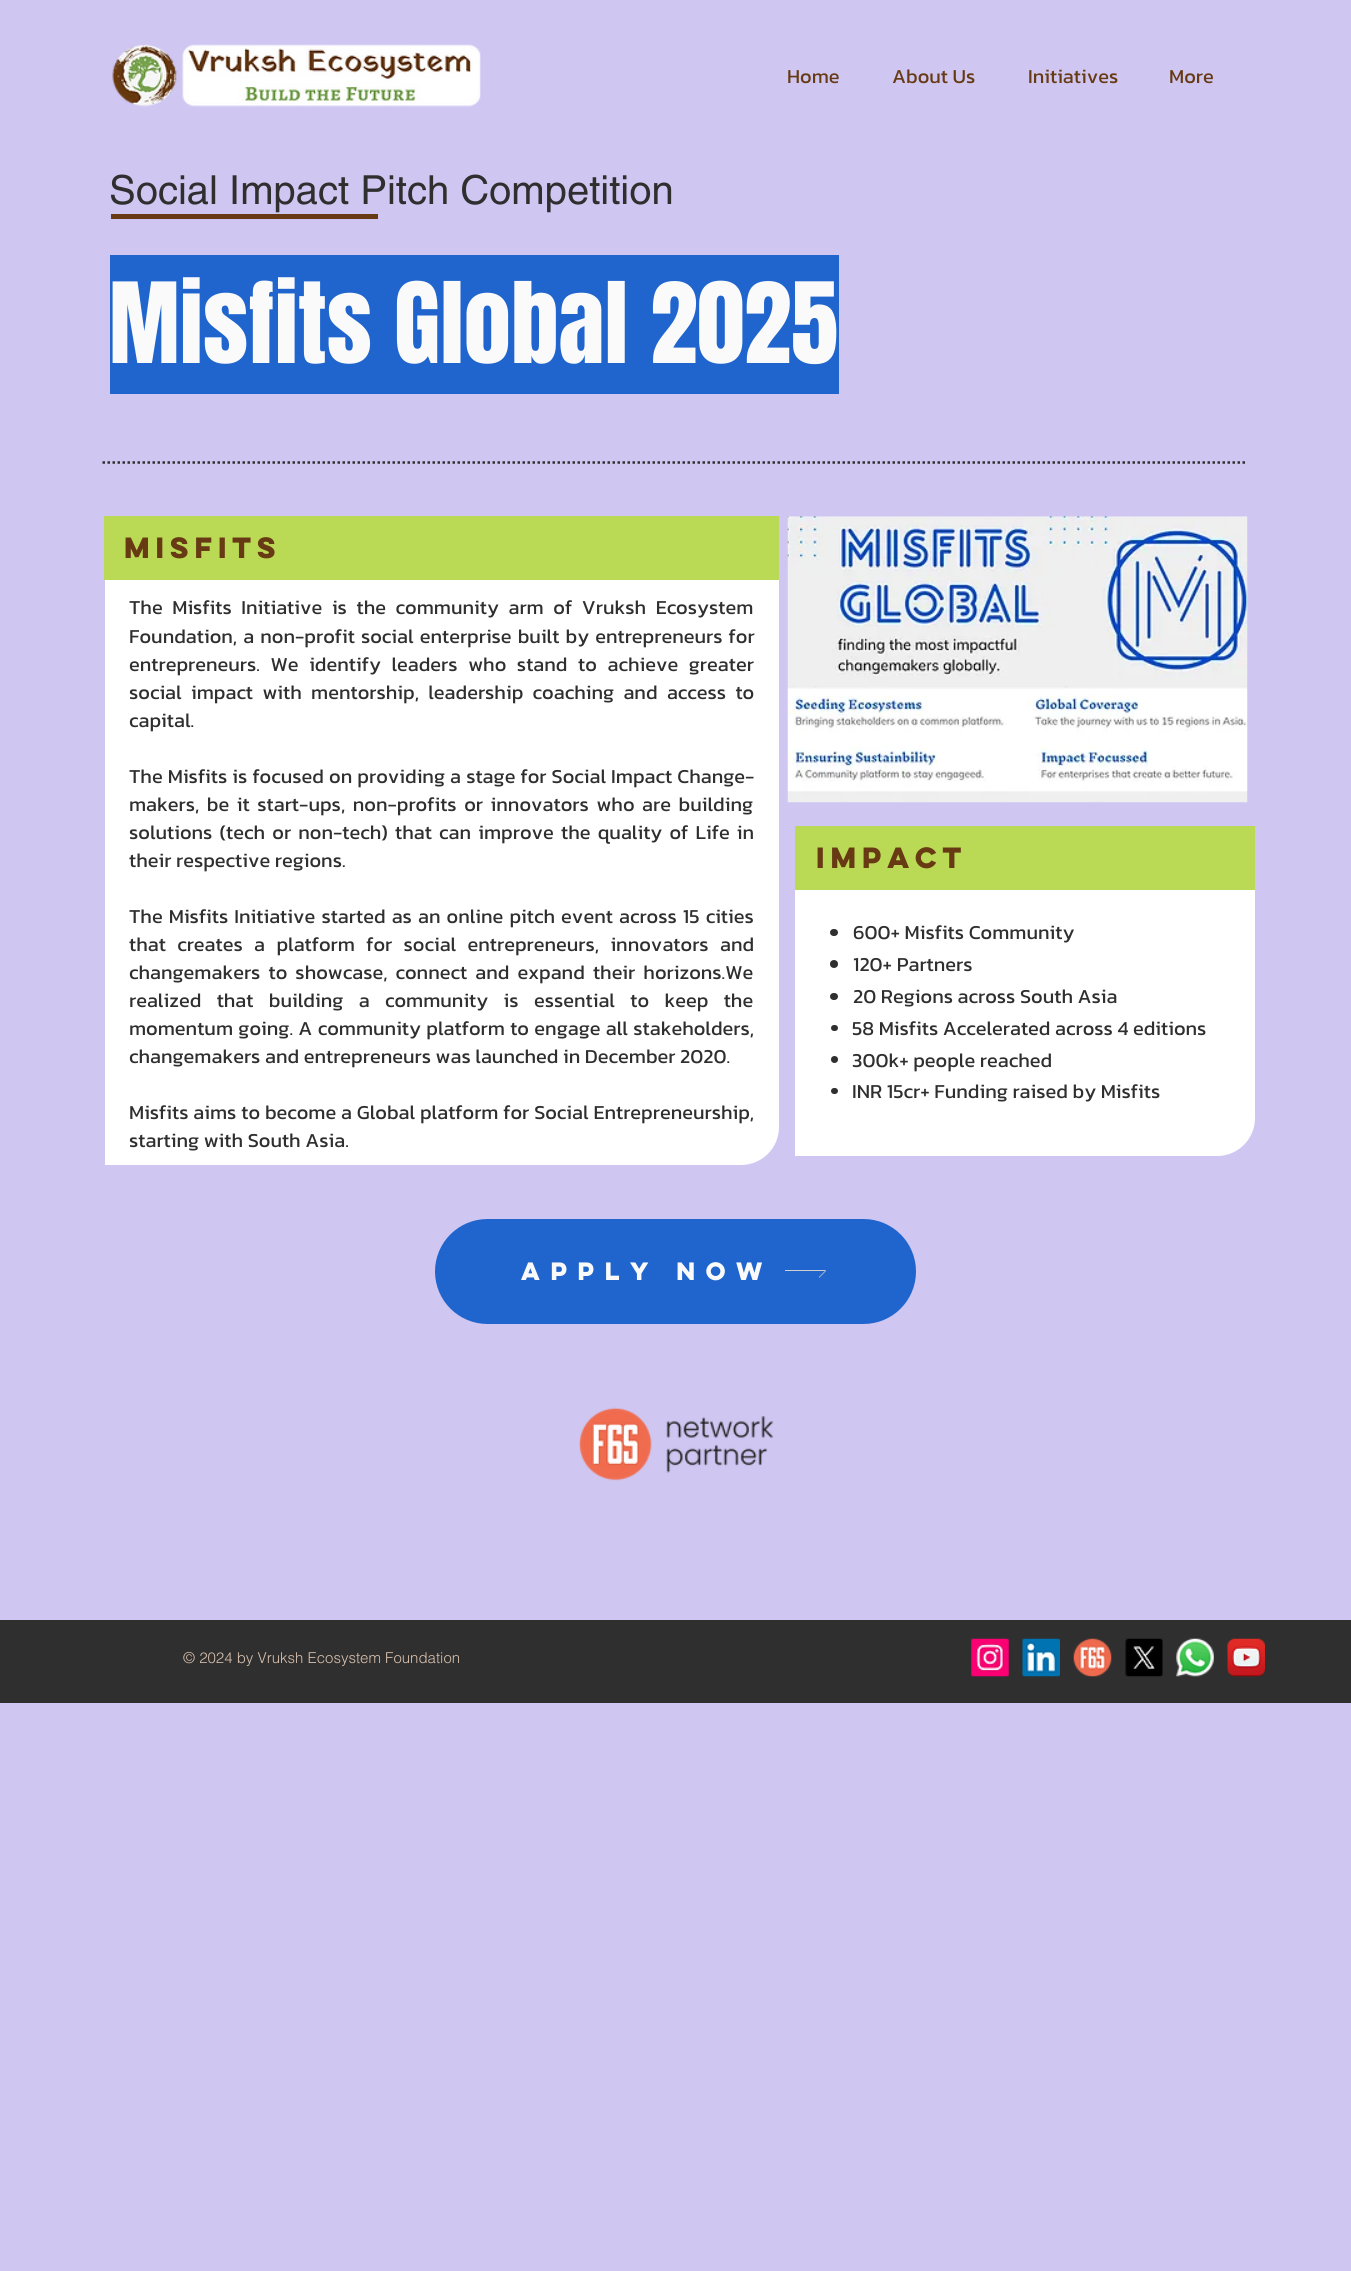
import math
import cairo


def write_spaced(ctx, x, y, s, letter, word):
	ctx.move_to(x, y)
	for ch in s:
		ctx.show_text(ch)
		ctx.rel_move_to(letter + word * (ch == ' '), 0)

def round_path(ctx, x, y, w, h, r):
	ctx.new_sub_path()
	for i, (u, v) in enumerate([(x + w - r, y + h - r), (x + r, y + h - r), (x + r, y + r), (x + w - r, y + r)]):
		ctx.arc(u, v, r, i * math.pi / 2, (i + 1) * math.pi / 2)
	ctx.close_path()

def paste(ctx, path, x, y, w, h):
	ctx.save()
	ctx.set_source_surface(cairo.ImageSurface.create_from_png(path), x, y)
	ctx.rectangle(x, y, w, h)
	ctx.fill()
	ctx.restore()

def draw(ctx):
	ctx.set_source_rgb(0.812, 0.78, 0.949)
	ctx.paint()
	paste(ctx, 'media/1.png', 112, 44, 369, 63)
	ctx.select_font_face('Kanit')
	ctx.set_font_size(20)
	ctx.set_source_rgb(0.404, 0.227, 0.082)
	for x, y, s in [
		(787, 83, 'Home'),
		(892, 83, 'About Us'),
		(1028, 83, 'Initiatives'),
		(1169, 83, 'More'),
	]:
		ctx.move_to(x, y)
		ctx.show_text(s)
	ctx.select_font_face('helvetica')
	ctx.set_font_size(40)
	ctx.set_source_rgb(0.184, 0.184, 0.184)
	ctx.move_to(109, 204)
	ctx.show_text('Social Impact Pitch Competition')
	ctx.set_source_rgb(0.404, 0.227, 0.082)
	ctx.rectangle(111, 214, 267, 5)
	ctx.fill()
	ctx.set_source_rgb(0.122, 0.396, 0.804)
	ctx.rectangle(110, 255, 729, 139)
	ctx.fill()
	ctx.select_font_face('Anton')
	ctx.set_font_size(95)
	ctx.set_source_rgb(0.98, 0.98, 0.98)
	ctx.move_to(109, 363)
	ctx.show_text('Misfits Global 2025')
	ctx.new_path()
	ctx.move_to(102.5, 462.5)
	ctx.line_to(1245, 462.5)
	ctx.set_source_rgb(0.184, 0.184, 0.184)
	ctx.set_line_width(2.5)
	ctx.set_dash([2.5, 2.5])
	ctx.stroke()
	ctx.set_source_rgb(1, 1, 1)
	ctx.new_path()
	ctx.move_to(105, 523)
	ctx.line_to(779, 523)
	ctx.line_to(779, 1127)
	ctx.curve_to(779, 1148, 762, 1165, 741, 1165)
	ctx.line_to(105, 1165)
	ctx.close_path()
	ctx.fill()
	ctx.set_source_rgb(0.729, 0.855, 0.333)
	ctx.rectangle(104, 516, 675, 64)
	ctx.fill()
	ctx.select_font_face('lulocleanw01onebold', cairo.FONT_SLANT_NORMAL, cairo.FONT_WEIGHT_BOLD)
	ctx.set_font_size(26.25)
	ctx.set_source_rgb(0.404, 0.227, 0.082)
	ctx.move_to(124, 558)
	ctx.show_text('Misfits')
	ctx.select_font_face('Kanit')
	ctx.set_font_size(20)
	ctx.set_source_rgb(0.184, 0.184, 0.184)
	write_spaced(ctx, 129, 614, 'The Misfits Initiative is the community arm of Vruksh Ecosystem', 0, 5)
	write_spaced(ctx, 129, 643, 'Foundation, a non-profit social enterprise built by entrepreneurs for', 0, 1.5)
	write_spaced(ctx, 129, 671, 'entrepreneurs. We identify leaders who stand to achieve greater', 0, 6)
	write_spaced(ctx, 129, 699, 'social impact with mentorship, leadership coaching and access to', 0, 4.75)
	ctx.move_to(129, 727)
	ctx.show_text('capital.')
	write_spaced(ctx, 129, 783, 'The Misfits is focused on providing a stage for Social Impact Change-', 0, 0.5)
	write_spaced(ctx, 129, 811, 'makers, be it start-ups, non-profits or innovators who are building', 0, 3)
	write_spaced(ctx, 129, 839, 'solutions (tech or non-tech) that can improve the quality of Life in', 0, 2.6)
	ctx.move_to(129, 867)
	ctx.show_text('their respective regions.')
	write_spaced(ctx, 129, 923, 'The Misfits Initiative started as an online pitch event across 15 cities', 0, 1.5)
	write_spaced(ctx, 129, 951, 'that creates a platform for social entrepreneurs, innovators and', 0, 6.75)
	write_spaced(ctx, 129, 979, 'changemakers to showcase, connect and expand their horizons.We', 0, 3.5)
	write_spaced(ctx, 129, 1007, 'realized that building a community is essential to keep the', 0, 10.75)
	write_spaced(ctx, 129, 1035, 'momentum going. A community platform to engage all stakeholders,', 0, 0.75)
	ctx.move_to(129, 1063)
	ctx.show_text('changemakers and entrepreneurs was launched in December 2020.')
	write_spaced(ctx, 129, 1119, 'Misfits aims to become a Global platform for Social Entrepreneurship,', 0, 0.25)
	ctx.move_to(129, 1147)
	ctx.show_text('starting with South Asia.')
	paste(ctx, 'media/2.png', 787, 516, 461, 287)
	ctx.set_source_rgb(1, 1, 1)
	ctx.new_path()
	ctx.move_to(795, 826)
	ctx.line_to(1255, 826)
	ctx.line_to(1255, 1118)
	ctx.curve_to(1255, 1139, 1238, 1156, 1217, 1156)
	ctx.line_to(795, 1156)
	ctx.close_path()
	ctx.fill()
	ctx.set_source_rgb(0.729, 0.855, 0.333)
	ctx.rectangle(795, 826, 460, 64)
	ctx.fill()
	ctx.select_font_face('lulocleanw01onebold', cairo.FONT_SLANT_NORMAL, cairo.FONT_WEIGHT_BOLD)
	ctx.set_font_size(26.25)
	ctx.set_source_rgb(0.404, 0.227, 0.082)
	ctx.move_to(816, 868)
	ctx.show_text('IMPACT')
	ctx.set_source_rgb(0.184, 0.184, 0.184)
	round_path(ctx, 830, 929, 8, 7, 3.5)
	ctx.fill()
	ctx.select_font_face('Kanit')
	ctx.set_font_size(20)
	ctx.move_to(853, 939)
	ctx.show_text('600+ Misfits Community')
	ctx.new_path()
	ctx.arc(834, 964, 4, 0, 2 * math.pi)
	ctx.fill()
	ctx.move_to(853, 971)
	ctx.show_text('120+ Partners')
	round_path(ctx, 830, 993, 8, 7, 3.5)
	ctx.fill()
	ctx.move_to(853, 1003)
	ctx.show_text('20 Regions across South Asia')
	round_path(ctx, 831, 1025, 7, 6, 3)
	ctx.fill()
	ctx.move_to(852, 1035)
	ctx.show_text('58 Misfits Accelerated across 4 editions')
	ctx.new_path()
	ctx.arc(834.5, 1059.5, 3.5, 0, 2 * math.pi)
	ctx.fill()
	ctx.move_to(852, 1067)
	ctx.show_text('300k+ people reached')
	round_path(ctx, 831, 1088, 7, 6, 3)
	ctx.fill()
	ctx.move_to(852, 1098)
	ctx.show_text('INR 15cr+ Funding raised by Misfits')
	ctx.set_source_rgb(0.122, 0.396, 0.804)
	round_path(ctx, 435, 1219, 481, 105, 52.5)
	ctx.fill()
	ctx.select_font_face('lulocleanw01onebold', cairo.FONT_SLANT_NORMAL, cairo.FONT_WEIGHT_BOLD)
	ctx.set_font_size(22.5)
	ctx.set_source_rgb(0.98, 0.98, 0.98)
	write_spaced(ctx, 521, 1280, 'Apply Now', 5.6, 0)
	ctx.set_source_rgb(0.812, 0.812, 0.812)
	ctx.new_path()
	ctx.move_to(819, 1264)
	ctx.line_to(825, 1270)
	ctx.line_to(785, 1270)
	ctx.line_to(785, 1271)
	ctx.line_to(825, 1271)
	ctx.line_to(819, 1277)
	ctx.line_to(819, 1278)
	ctx.line_to(826, 1271)
	ctx.close_path()
	ctx.fill()
	paste(ctx, 'media/3.png', 578, 1407, 196, 74)
	ctx.set_source_rgb(0.184, 0.184, 0.184)
	ctx.rectangle(0, 1620, 1351, 83)
	ctx.fill()
	ctx.select_font_face('helvetica Light')
	ctx.set_font_size(15)
	ctx.set_source_rgb(0.851, 0.757, 0.682)
	ctx.move_to(183, 1663)
	ctx.show_text('© 2024 by Vruksh Ecosystem Foundation')
	paste(ctx, 'media/4.png', 971, 1638, 38, 39)
	paste(ctx, 'media/5.png', 1022, 1638, 38, 39)
	paste(ctx, 'media/6.png', 1073, 1638, 39, 39)
	paste(ctx, 'media/7.png', 1125, 1638, 38, 39)
	paste(ctx, 'media/8.png', 1176, 1638, 38, 39)
	paste(ctx, 'media/9.png', 1227, 1638, 38, 39)


surface = cairo.ImageSurface(cairo.FORMAT_RGB24, 1351, 2271)
ctx = cairo.Context(surface)
options = cairo.FontOptions()
options.set_hint_metrics(cairo.HINT_METRICS_OFF)
options.set_hint_style(cairo.HINT_STYLE_NONE)
ctx.set_font_options(options)
ctx.set_miter_limit(4)
draw(ctx)
surface.write_to_png('image.png')
